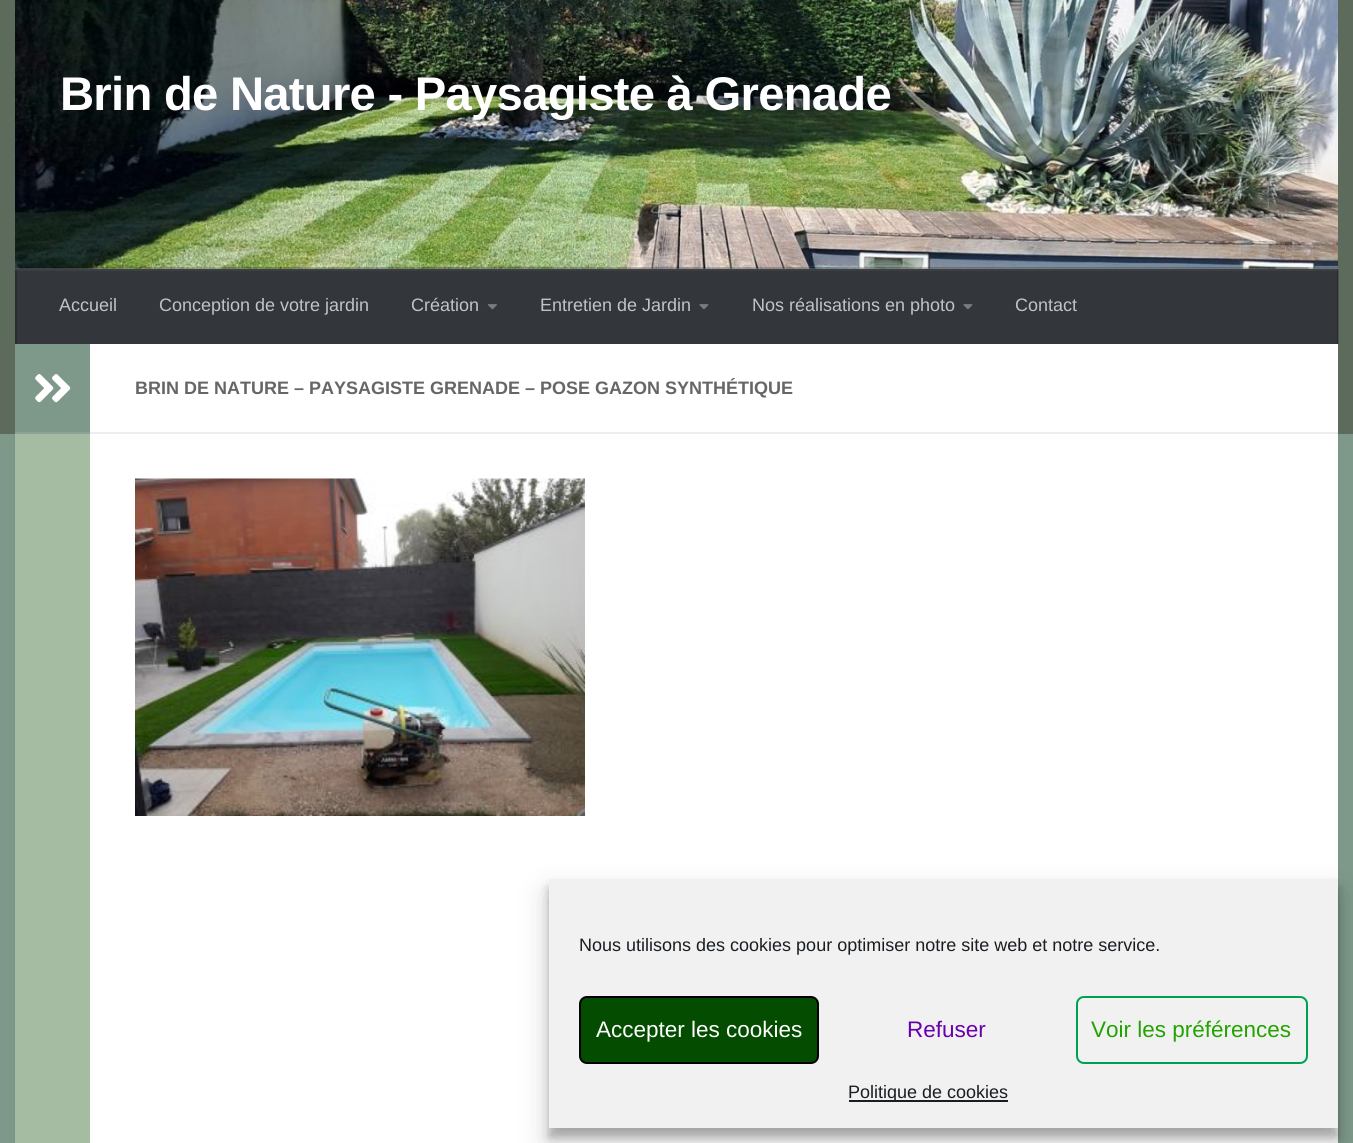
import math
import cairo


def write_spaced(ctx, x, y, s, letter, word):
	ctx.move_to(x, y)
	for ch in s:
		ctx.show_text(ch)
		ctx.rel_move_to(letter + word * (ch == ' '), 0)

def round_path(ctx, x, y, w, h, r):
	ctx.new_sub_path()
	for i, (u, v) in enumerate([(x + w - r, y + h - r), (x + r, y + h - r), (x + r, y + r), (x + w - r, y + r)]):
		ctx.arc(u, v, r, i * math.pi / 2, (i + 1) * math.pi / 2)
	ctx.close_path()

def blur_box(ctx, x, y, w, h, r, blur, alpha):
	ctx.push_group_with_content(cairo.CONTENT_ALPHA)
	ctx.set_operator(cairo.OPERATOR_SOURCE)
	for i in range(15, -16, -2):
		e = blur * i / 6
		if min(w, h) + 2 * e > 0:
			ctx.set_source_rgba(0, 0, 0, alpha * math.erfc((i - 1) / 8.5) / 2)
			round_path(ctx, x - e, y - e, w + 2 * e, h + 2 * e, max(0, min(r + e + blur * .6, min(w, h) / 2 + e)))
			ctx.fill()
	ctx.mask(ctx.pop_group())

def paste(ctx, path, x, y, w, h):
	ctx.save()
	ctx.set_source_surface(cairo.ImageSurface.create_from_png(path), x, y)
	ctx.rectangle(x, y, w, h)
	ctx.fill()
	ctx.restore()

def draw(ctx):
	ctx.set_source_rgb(0.494, 0.6, 0.541)
	ctx.paint()
	ctx.set_source_rgb(0, 0, 0)
	blur_box(ctx, 15, 345, 1323, 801, 0, 1, 0.1)
	ctx.set_source_rgb(0.361, 0.42, 0.361)
	ctx.rectangle(0, 0, 1353, 434)
	ctx.fill()
	paste(ctx, 'media/1.png', 15, 0, 1323, 269)
	ctx.select_font_face('Liberation Sans', cairo.FONT_SLANT_NORMAL, cairo.FONT_WEIGHT_BOLD)
	ctx.set_font_size(47.25)
	ctx.set_source_rgb(1, 1, 1)
	write_spaced(ctx, 60, 110, 'Brin de Nature - Paysagiste à Grenade', -0.75, 0)
	ctx.set_source_rgba(0, 0, 0, 0.2)
	ctx.rectangle(15, 267, 1323, 1)
	ctx.fill()
	ctx.set_source_rgb(0.2, 0.212, 0.231)
	ctx.rectangle(17, 269, 1321, 75)
	ctx.fill()
	ctx.set_source_rgba(0, 0, 0, 0.2)
	ctx.rectangle(1337, 269, 2, 75)
	ctx.fill()
	ctx.set_source_rgb(0.161, 0.169, 0.184)
	ctx.rectangle(15, 269, 2, 75)
	ctx.fill()
	ctx.set_source_rgba(1, 1, 1, 0.05)
	ctx.rectangle(15, 269, 1323, 2)
	ctx.fill()
	ctx.select_font_face('Liberation Sans')
	ctx.set_font_size(18)
	ctx.set_source_rgb(0.761, 0.765, 0.769)
	for x, y, s in [
		(59, 311, 'Accueil'),
		(159, 311, 'Conception de votre jardin'),
		(411, 311, 'Création'),
	]:
		ctx.move_to(x, y)
		ctx.show_text(s)
	paste(ctx, 'media/2.png', 487, 304, 10, 6)
	ctx.move_to(540, 311)
	ctx.show_text('Entretien de Jardin')
	paste(ctx, 'media/3.png', 699, 304, 10, 6)
	ctx.move_to(752, 311)
	ctx.show_text('Nos réalisations en photo')
	paste(ctx, 'media/3.png', 963, 304, 10, 6)
	ctx.move_to(1015, 311)
	ctx.show_text('Contact')
	ctx.set_source_rgb(1, 1, 1)
	ctx.rectangle(90, 344, 1248, 799)
	ctx.fill()
	ctx.set_source_rgb(0.494, 0.6, 0.541)
	ctx.rectangle(15, 344, 75, 88)
	ctx.fill()
	ctx.set_source_rgb(0.545, 0.639, 0.588)
	ctx.rectangle(15, 432, 75, 2)
	ctx.fill()
	paste(ctx, 'media/4.png', 35, 374, 36, 29)
	ctx.set_source_rgb(0.933, 0.933, 0.933)
	ctx.rectangle(90, 432, 1248, 2)
	ctx.fill()
	ctx.select_font_face('Liberation Sans', cairo.FONT_SLANT_NORMAL, cairo.FONT_WEIGHT_BOLD)
	ctx.set_source_rgb(0.4, 0.4, 0.4)
	ctx.move_to(135, 394)
	ctx.show_text('BRIN DE NATURE – PAYSAGISTE GRENADE – POSE GAZON SYNTHÉTIQUE')
	paste(ctx, 'media/5.png', 135, 478, 450, 338)
	ctx.set_source_rgb(0.647, 0.737, 0.635)
	ctx.rectangle(15, 434, 75, 709)
	ctx.fill()
	ctx.set_source_rgb(0, 0, 0)
	blur_box(ctx, 549, 888, 789, 249, 0, 4.5, 0.23)
	blur_box(ctx, 549, 894, 789, 249, 0, 15, 0.19)
	ctx.set_source_rgb(0.945, 0.945, 0.945)
	ctx.rectangle(549, 879, 789, 249)
	ctx.fill()
	ctx.select_font_face('Liberation Sans')
	ctx.set_source_rgb(0.098, 0.118, 0.137)
	ctx.move_to(579, 951)
	ctx.show_text('Nous utilisons des cookies pour optimiser notre site web et notre service.')
	ctx.set_source_rgb(0.012, 0.298, 0)
	round_path(ctx, 580, 997, 238, 66, 7)
	ctx.fill_preserve()
	ctx.set_source_rgb(0, 0, 0)
	ctx.stroke()
	ctx.set_font_size(22.5)
	ctx.set_source_rgb(1, 1, 1)
	ctx.move_to(596, 1037)
	ctx.show_text('Accepter les cookies')
	ctx.set_source_rgb(0.416, 0, 0.678)
	ctx.move_to(907, 1037)
	ctx.show_text('Refuser')
	round_path(ctx, 1077, 997, 230, 66, 7)
	ctx.set_source_rgb(0, 0.627, 0.325)
	ctx.stroke()
	ctx.set_source_rgb(0.137, 0.639, 0)
	ctx.move_to(1091, 1037)
	ctx.show_text('Voir les préférences')
	ctx.set_source_rgb(0.098, 0.118, 0.137)
	ctx.rectangle(849, 1100, 159, 2)
	ctx.fill()
	ctx.set_font_size(18)
	ctx.move_to(848, 1098)
	ctx.show_text('Politique de cookies')


surface = cairo.ImageSurface(cairo.FORMAT_RGB24, 1353, 1143)
ctx = cairo.Context(surface)
options = cairo.FontOptions()
options.set_hint_metrics(cairo.HINT_METRICS_OFF)
options.set_hint_style(cairo.HINT_STYLE_NONE)
ctx.set_font_options(options)
ctx.set_miter_limit(4)
draw(ctx)
surface.write_to_png('image.png')
